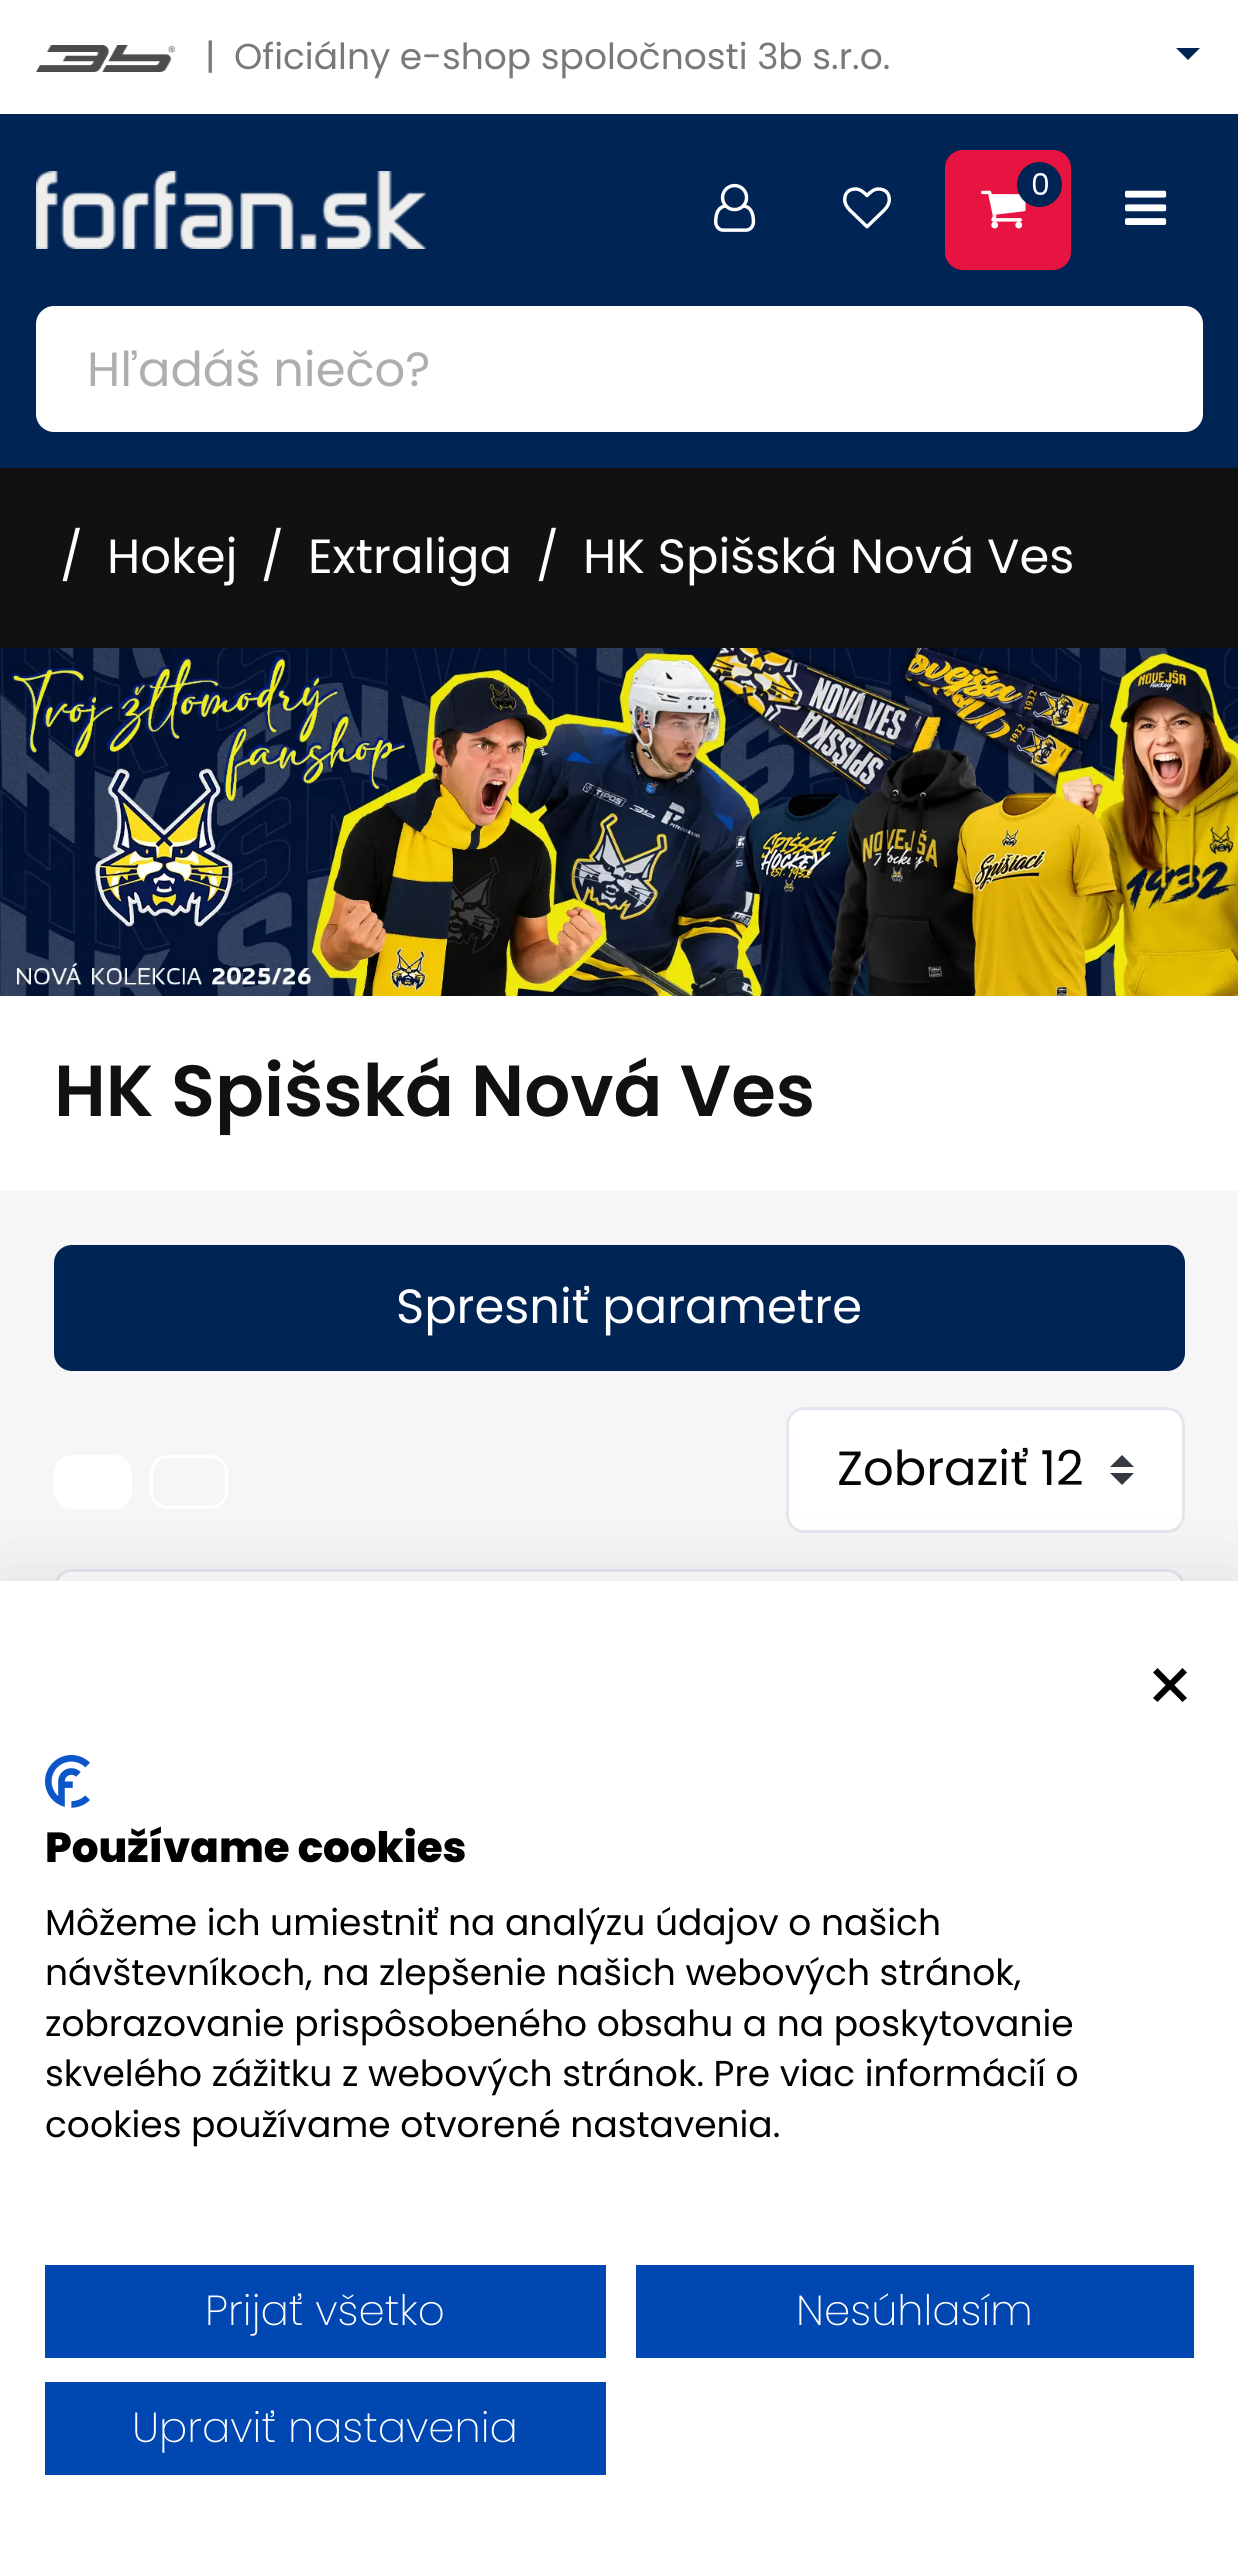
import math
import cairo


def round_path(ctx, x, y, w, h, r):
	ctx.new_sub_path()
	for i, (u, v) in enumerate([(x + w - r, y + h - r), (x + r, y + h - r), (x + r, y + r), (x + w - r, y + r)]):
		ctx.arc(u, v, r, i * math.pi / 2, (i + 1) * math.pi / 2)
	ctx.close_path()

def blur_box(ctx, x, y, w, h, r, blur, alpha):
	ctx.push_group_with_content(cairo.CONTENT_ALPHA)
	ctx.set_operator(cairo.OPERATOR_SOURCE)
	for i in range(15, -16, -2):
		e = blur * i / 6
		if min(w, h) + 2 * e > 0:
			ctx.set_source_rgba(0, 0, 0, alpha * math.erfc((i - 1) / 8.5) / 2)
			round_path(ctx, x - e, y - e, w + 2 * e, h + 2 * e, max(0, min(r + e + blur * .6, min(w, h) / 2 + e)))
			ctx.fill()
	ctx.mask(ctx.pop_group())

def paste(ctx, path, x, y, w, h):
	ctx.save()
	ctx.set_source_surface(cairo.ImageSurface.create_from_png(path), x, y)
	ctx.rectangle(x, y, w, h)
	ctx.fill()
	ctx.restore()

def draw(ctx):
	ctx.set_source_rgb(1, 1, 1)
	ctx.paint()
	paste(ctx, 'media/1.png', 36, 45, 139, 27)
	ctx.select_font_face('Poppins')
	ctx.set_font_size(36)
	ctx.set_source_rgb(0.471, 0.475, 0.475)
	ctx.move_to(205, 69)
	ctx.show_text('|')
	ctx.move_to(234, 69)
	ctx.show_text('Oficiálny e-shop spoločnosti 3b s.r.o.')
	ctx.set_source_rgb(0, 0.141, 0.329)
	ctx.new_path()
	ctx.move_to(1176, 48)
	ctx.line_to(1200, 48)
	ctx.line_to(1188, 60)
	ctx.close_path()
	ctx.fill()
	ctx.rectangle(0, 114, 1238, 354)
	ctx.fill()
	paste(ctx, 'media/2.png', 36, 171, 390, 78)
	paste(ctx, 'media/3.png', 714, 183, 42, 49)
	paste(ctx, 'media/4.png', 843, 187, 48, 42)
	ctx.set_source_rgb(0.906, 0.078, 0.255)
	round_path(ctx, 945, 150, 126, 120, 18)
	ctx.fill()
	paste(ctx, 'media/5.png', 981, 190, 45, 39)
	ctx.set_source_rgb(0, 0.141, 0.329)
	ctx.arc(1039.5, 184.5, 22.5, 0, 2 * math.pi)
	ctx.fill()
	ctx.set_font_size(30)
	ctx.set_source_rgb(1, 1, 1)
	ctx.move_to(1031, 195)
	ctx.show_text('0')
	paste(ctx, 'media/6.png', 1125, 190, 42, 35)
	ctx.new_path()
	ctx.move_to(54, 307.5)
	ctx.line_to(1126.5, 307.5)
	ctx.line_to(1126.5, 430.5)
	ctx.line_to(54, 430.5)
	ctx.curve_to(45, 430.5, 37.5, 423, 37.5, 414)
	ctx.line_to(37.5, 324)
	ctx.curve_to(37.5, 315, 45, 307.5, 54, 307.5)
	ctx.close_path()
	ctx.fill_preserve()
	ctx.set_line_width(3)
	ctx.stroke()
	ctx.set_font_size(48)
	ctx.set_source_rgb(0.682, 0.682, 0.682)
	ctx.move_to(87, 386)
	ctx.show_text('Hľadáš niečo?')
	ctx.set_source_rgb(1, 1, 1)
	ctx.new_path()
	ctx.move_to(1126.5, 307.5)
	ctx.line_to(1185, 307.5)
	ctx.curve_to(1194, 307.5, 1201.5, 315, 1201.5, 324)
	ctx.line_to(1201.5, 414)
	ctx.curve_to(1201.5, 423, 1194, 430.5, 1185, 430.5)
	ctx.line_to(1126.5, 430.5)
	ctx.close_path()
	ctx.fill_preserve()
	ctx.stroke()
	ctx.set_source_rgb(0.067, 0.067, 0.067)
	ctx.rectangle(0, 468, 1238, 180)
	ctx.fill()
	ctx.set_source_rgb(1, 1, 1)
	for x, y, s in [
		(60, 573, '/'),
		(107, 573, 'Hokej'),
		(261, 573, '/'),
		(308, 573, 'Extraliga'),
		(536, 573, '/'),
		(583, 573, 'HK Spišská Nová Ves'),
	]:
		ctx.move_to(x, y)
		ctx.show_text(s)
	paste(ctx, 'media/7.png', 0, 648, 1238, 348)
	ctx.select_font_face('Poppins SemiBold')
	ctx.set_font_size(72.25)
	ctx.set_source_rgb(0.067, 0.067, 0.067)
	ctx.move_to(54, 1116)
	ctx.show_text('HK Spišská Nová Ves')
	ctx.set_source_rgb(0.961, 0.961, 0.961)
	ctx.rectangle(0, 1191, 1238, 390)
	ctx.fill()
	ctx.set_source_rgb(0, 0.141, 0.329)
	round_path(ctx, 55.5, 1246.5, 1128, 123, 16.5)
	ctx.fill_preserve()
	ctx.stroke()
	ctx.select_font_face('Poppins')
	ctx.set_font_size(48)
	ctx.set_source_rgb(1, 1, 1)
	ctx.move_to(396, 1323)
	ctx.show_text('Spresniť parametre')
	round_path(ctx, 54, 1455, 78, 54, 18)
	ctx.fill()
	round_path(ctx, 151.5, 1456.5, 75, 51, 16.5)
	ctx.stroke()
	round_path(ctx, 786, 1407, 399, 126, 18)
	ctx.fill()
	ctx.set_source_rgb(0.204, 0.227, 0.251)
	ctx.new_path()
	ctx.move_to(1122, 1455)
	ctx.line_to(1110, 1467)
	ctx.line_to(1134, 1467)
	ctx.close_path()
	ctx.move_to(1122, 1485)
	ctx.line_to(1110, 1473)
	ctx.line_to(1134, 1473)
	ctx.close_path()
	ctx.fill()
	round_path(ctx, 787.5, 1408.5, 396, 123, 16.5)
	ctx.set_source_rgb(0.894, 0.902, 0.937)
	ctx.stroke()
	ctx.set_source_rgb(0.016, 0.027, 0.027)
	ctx.move_to(837, 1485)
	ctx.show_text('Zobraziť 12')
	ctx.set_source_rgb(1, 1, 1)
	round_path(ctx, 55.5, 1570.5, 1128, 123, 16.5)
	ctx.fill_preserve()
	ctx.set_source_rgb(0.894, 0.902, 0.937)
	ctx.stroke()
	ctx.set_source_rgb(0, 0, 0)
	blur_box(ctx, 0, 1581, 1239, 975, 0, 36, 0.1)
	ctx.set_source_rgb(1, 1, 1)
	ctx.rectangle(0, 1581, 1238, 973)
	ctx.fill()
	ctx.set_source_rgb(0, 0, 0)
	ctx.new_path()
	ctx.move_to(1182.5, 1668)
	ctx.line_to(1187, 1672.5)
	ctx.line_to(1157.5, 1702)
	ctx.line_to(1153, 1698)
	ctx.close_path()
	ctx.fill()
	ctx.new_path()
	ctx.move_to(1153, 1672.5)
	ctx.line_to(1157.5, 1668)
	ctx.line_to(1187, 1698)
	ctx.line_to(1182.5, 1702)
	ctx.close_path()
	ctx.fill()
	paste(ctx, 'media/8.png', 45, 1755, 45, 53)
	ctx.select_font_face('Poppins ExtraBold')
	ctx.set_font_size(42)
	ctx.move_to(45, 1862)
	ctx.show_text('Používame cookies')
	ctx.select_font_face('Poppins')
	ctx.set_font_size(36)
	for x, y, s in [
		(45, 1935, 'Môžeme ich umiestniť na analýzu údajov o našich'),
		(45, 1985, 'návštevníkoch, na zlepšenie našich webových stránok,'),
		(45, 2036, 'zobrazovanie prispôsobeného obsahu a na poskytovanie'),
		(45, 2086, 'skvelého zážitku z webových stránok. Pre viac informácií o'),
		(45, 2137, 'cookies používame otvorené nastavenia.'),
	]:
		ctx.move_to(x, y)
		ctx.show_text(s)
	ctx.set_source_rgb(0, 0.278, 0.698)
	ctx.rectangle(45, 2265, 561, 93)
	ctx.fill()
	ctx.select_font_face('Poppins ExtraLight')
	ctx.set_font_size(42)
	ctx.set_source_rgb(1, 1, 1)
	ctx.move_to(205, 2325)
	ctx.show_text('Prijať všetko')
	ctx.set_source_rgb(0, 0.278, 0.698)
	ctx.rectangle(636, 2265, 558, 93)
	ctx.fill()
	ctx.set_source_rgb(1, 1, 1)
	ctx.move_to(796, 2325)
	ctx.show_text('Nesúhlasím')
	ctx.set_source_rgb(0, 0.278, 0.698)
	ctx.rectangle(45, 2382, 561, 93)
	ctx.fill()
	ctx.set_source_rgb(1, 1, 1)
	ctx.move_to(132, 2442)
	ctx.show_text('Upraviť nastavenia')


surface = cairo.ImageSurface(cairo.FORMAT_RGB24, 1238, 2554)
ctx = cairo.Context(surface)
options = cairo.FontOptions()
options.set_hint_metrics(cairo.HINT_METRICS_OFF)
options.set_hint_style(cairo.HINT_STYLE_NONE)
ctx.set_font_options(options)
ctx.set_miter_limit(4)
draw(ctx)
surface.write_to_png('image.png')
